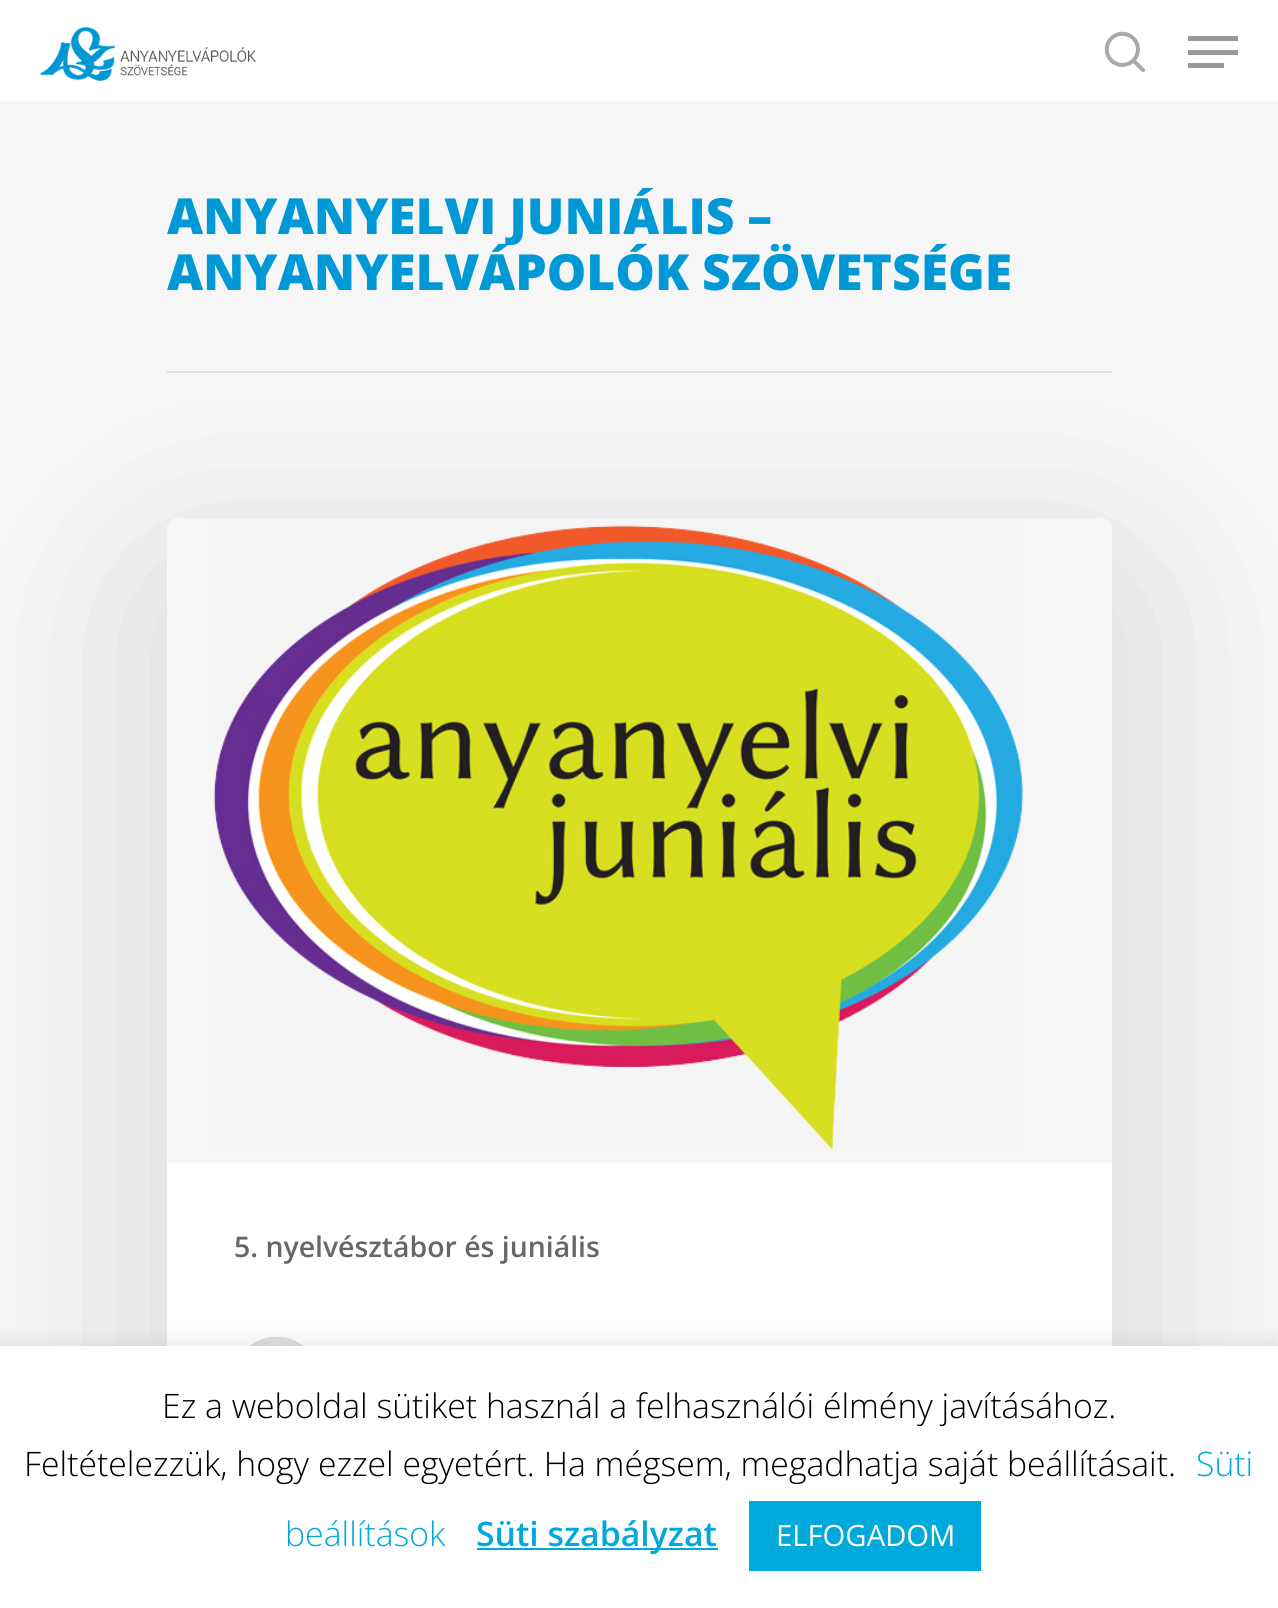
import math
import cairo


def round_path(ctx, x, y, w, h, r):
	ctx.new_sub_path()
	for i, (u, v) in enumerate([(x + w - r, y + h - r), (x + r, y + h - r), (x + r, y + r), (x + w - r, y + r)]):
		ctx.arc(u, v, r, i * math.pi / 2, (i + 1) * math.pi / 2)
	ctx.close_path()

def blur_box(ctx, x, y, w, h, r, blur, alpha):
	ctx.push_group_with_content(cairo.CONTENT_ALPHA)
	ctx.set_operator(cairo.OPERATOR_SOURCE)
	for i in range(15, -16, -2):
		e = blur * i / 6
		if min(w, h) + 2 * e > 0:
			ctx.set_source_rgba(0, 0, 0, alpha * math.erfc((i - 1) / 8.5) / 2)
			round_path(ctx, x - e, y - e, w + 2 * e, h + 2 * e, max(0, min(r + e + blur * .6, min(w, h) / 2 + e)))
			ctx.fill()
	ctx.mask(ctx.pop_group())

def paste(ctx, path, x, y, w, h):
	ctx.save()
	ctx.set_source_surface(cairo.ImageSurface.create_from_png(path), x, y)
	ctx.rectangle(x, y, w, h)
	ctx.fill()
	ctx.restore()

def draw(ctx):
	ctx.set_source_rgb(0.961, 0.961, 0.961)
	ctx.paint()
	ctx.set_source_rgb(1, 1, 1)
	ctx.rectangle(0, 0, 1278, 101)
	ctx.fill()
	paste(ctx, 'media/1.png', 40, 27, 217, 54)
	paste(ctx, 'media/2.png', 1104, 31, 42, 42)
	ctx.set_source_rgb(0.6, 0.6, 0.6)
	ctx.rectangle(1188, 36, 50, 5)
	ctx.rectangle(1188, 63, 36, 5)
	ctx.rectangle(1188, 50, 50, 5)
	ctx.fill()
	ctx.save()
	ctx.set_fill_rule(cairo.FILL_RULE_EVEN_ODD)
	ctx.new_path()
	ctx.move_to(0, 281)
	ctx.line_to(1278, 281)
	ctx.line_to(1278, 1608)
	ctx.line_to(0, 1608)
	ctx.close_path()
	ctx.move_to(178, 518)
	ctx.line_to(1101, 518)
	ctx.curve_to(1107, 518, 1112, 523, 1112, 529)
	ctx.line_to(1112, 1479)
	ctx.curve_to(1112, 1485, 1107, 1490, 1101, 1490)
	ctx.line_to(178, 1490)
	ctx.curve_to(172, 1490, 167, 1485, 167, 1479)
	ctx.line_to(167, 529)
	ctx.curve_to(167, 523, 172, 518, 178, 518)
	ctx.close_path()
	ctx.clip()
	ctx.set_source_rgb(0, 0, 0)
	blur_box(ctx, 167, 585, 945, 972, 11, 101, 0.14)
	ctx.restore()
	ctx.set_source_rgb(0.867, 0.867, 0.867)
	ctx.rectangle(167, 371, 945, 2)
	ctx.fill()
	ctx.select_font_face('Open Sans ExtraBold')
	ctx.set_font_size(49.75)
	ctx.set_source_rgb(0, 0.6, 0.839)
	ctx.move_to(167, 234)
	ctx.show_text('ANYANYELVI JUNIÁLIS –')
	ctx.move_to(167, 290)
	ctx.show_text('ANYANYELVÁPOLÓK SZÖVETSÉGE')
	paste(ctx, 'media/3.png', 213, 525, 810, 625)
	ctx.set_source_rgb(1, 1, 1)
	ctx.rectangle(167, 1163, 945, 183)
	ctx.fill()
	ctx.select_font_face('Open Sans SemiBold')
	ctx.set_font_size(28.4)
	ctx.set_source_rgb(0.404, 0.404, 0.404)
	ctx.move_to(234, 1257)
	ctx.show_text('5. nyelvésztábor és juniális')
	paste(ctx, 'media/4.png', 250, 1336, 54, 10)
	ctx.set_source_rgb(0.675, 0.671, 0.671)
	blur_box(ctx, 0, 1343, 1278, 264, 0, 11, 0.3)
	ctx.set_source_rgb(1, 1, 1)
	ctx.rectangle(0, 1346, 1278, 262)
	ctx.fill()
	ctx.select_font_face('Open Sans Light')
	ctx.set_font_size(33.75)
	ctx.set_source_rgb(0, 0, 0)
	ctx.move_to(162, 1418)
	ctx.show_text('Ez a weboldal sütiket használ a felhasználói élmény javításához.')
	ctx.move_to(24, 1476)
	ctx.show_text('Feltételezzük, hogy ezzel egyetért. Ha mégsem, megadhatja saját beállításait.')
	ctx.set_source_rgb(0, 0.663, 0.859)
	ctx.move_to(1196, 1476)
	ctx.show_text('Süti')
	ctx.move_to(285, 1546)
	ctx.show_text('beállítások')
	ctx.rectangle(477, 1548, 241, 2)
	ctx.fill()
	ctx.select_font_face('Open Sans SemiBold')
	ctx.move_to(476, 1546)
	ctx.show_text('Süti szabályzat')
	ctx.rectangle(749, 1501, 232, 70)
	ctx.fill()
	ctx.select_font_face('Open Sans')
	ctx.set_font_size(29.25)
	ctx.set_source_rgb(1, 1, 1)
	ctx.move_to(776, 1546)
	ctx.show_text('ELFOGADOM')


surface = cairo.ImageSurface(cairo.FORMAT_RGB24, 1278, 1608)
ctx = cairo.Context(surface)
options = cairo.FontOptions()
options.set_hint_metrics(cairo.HINT_METRICS_OFF)
options.set_hint_style(cairo.HINT_STYLE_NONE)
ctx.set_font_options(options)
ctx.set_miter_limit(4)
draw(ctx)
surface.write_to_png('image.png')
